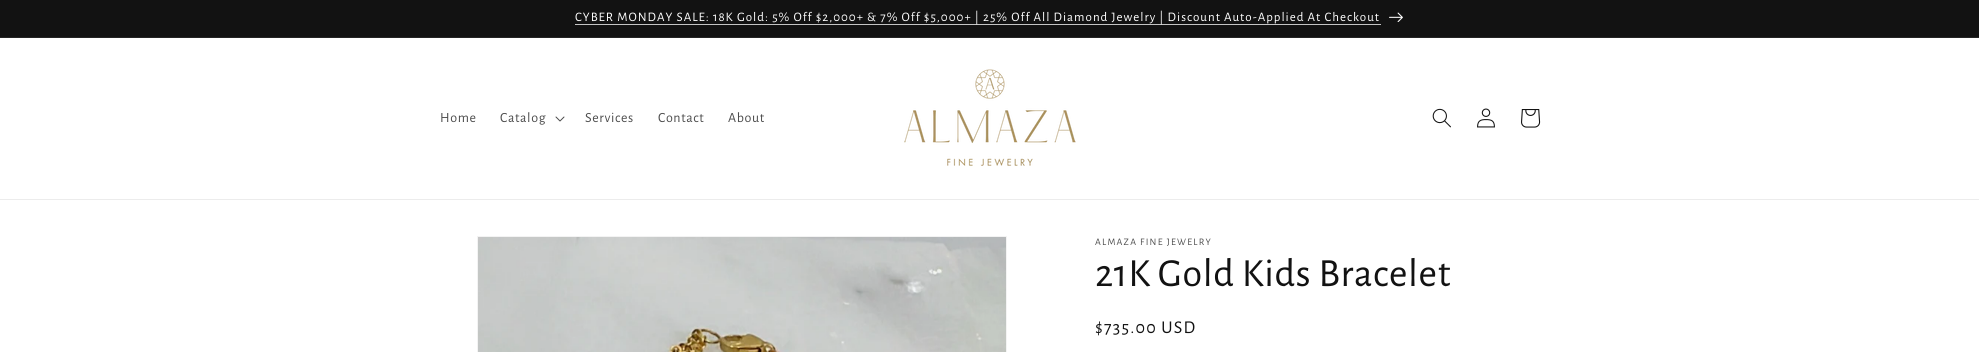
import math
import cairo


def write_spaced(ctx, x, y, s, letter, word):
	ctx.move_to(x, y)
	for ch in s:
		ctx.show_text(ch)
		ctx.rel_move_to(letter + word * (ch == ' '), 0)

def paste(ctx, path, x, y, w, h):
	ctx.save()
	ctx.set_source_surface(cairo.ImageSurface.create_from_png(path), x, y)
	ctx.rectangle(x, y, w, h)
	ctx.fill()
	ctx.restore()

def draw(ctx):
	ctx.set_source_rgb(1, 1, 1)
	ctx.paint()
	ctx.set_source_rgb(0.071, 0.071, 0.071)
	ctx.rectangle(0, 0, 1979, 37)
	ctx.fill()
	ctx.set_source_rgb(0.145, 0.145, 0.145)
	ctx.rectangle(0, 37, 1979, 1)
	ctx.fill()
	ctx.set_source_rgb(0.769, 0.769, 0.769)
	ctx.rectangle(575, 24, 806, 1)
	ctx.fill()
	ctx.select_font_face('Alegreya Sans')
	ctx.set_font_size(13)
	ctx.set_source_rgb(1, 1, 1)
	write_spaced(ctx, 575, 21, 'CYBER MONDAY SALE: 18K Gold: 5% Off $2,000+ & 7% Off $5,000+ | 25% Off All Diamond Jewelry | Discount Auto-Applied At Checkout', 1, 0)
	paste(ctx, 'media/1.png', 1389, 12, 14, 10)
	ctx.set_source_rgb(0.925, 0.925, 0.925)
	ctx.rectangle(0, 199, 1979, 1)
	ctx.fill()
	ctx.set_font_size(14)
	ctx.set_source_rgb(0.302, 0.302, 0.302)
	write_spaced(ctx, 440, 122, 'Home', 0.6, 0)
	write_spaced(ctx, 500, 122, 'Catalog', 0.6, 0)
	paste(ctx, 'media/2.png', 555, 116, 10, 6)
	for x, y, s in [
		(585, 122, 'Services'),
		(658, 122, 'Contact'),
		(728, 122, 'About'),
	]:
		write_spaced(ctx, x, y, s, 0.6, 0)
	paste(ctx, 'media/3.png', 904, 69, 172, 97)
	paste(ctx, 'media/4.png', 1432, 108, 19, 20)
	paste(ctx, 'media/5.png', 1477, 108, 18, 20)
	paste(ctx, 'media/6.png', 1521, 109, 20, 19)
	ctx.rectangle(477.5, 236.5, 529, 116)
	ctx.set_source_rgb(0.953, 0.953, 0.953)
	ctx.set_line_width(1)
	ctx.stroke()
	paste(ctx, 'media/7.png', 478, 237, 528, 115)
	ctx.set_font_size(10)
	ctx.set_source_rgb(0.302, 0.302, 0.302)
	write_spaced(ctx, 1095, 245, 'ALMAZA FINE JEWELRY', 1.25, 0)
	ctx.set_font_size(40)
	ctx.set_source_rgb(0.071, 0.071, 0.071)
	write_spaced(ctx, 1095, 286, '21K Gold Kids Bracelet', 0.6, 0)
	ctx.set_font_size(18)
	write_spaced(ctx, 1095, 333, '$735.00 USD', 1.25, 0)


surface = cairo.ImageSurface(cairo.FORMAT_RGB24, 1979, 352)
ctx = cairo.Context(surface)
options = cairo.FontOptions()
options.set_hint_metrics(cairo.HINT_METRICS_OFF)
options.set_hint_style(cairo.HINT_STYLE_NONE)
ctx.set_font_options(options)
ctx.set_miter_limit(4)
draw(ctx)
surface.write_to_png('image.png')
